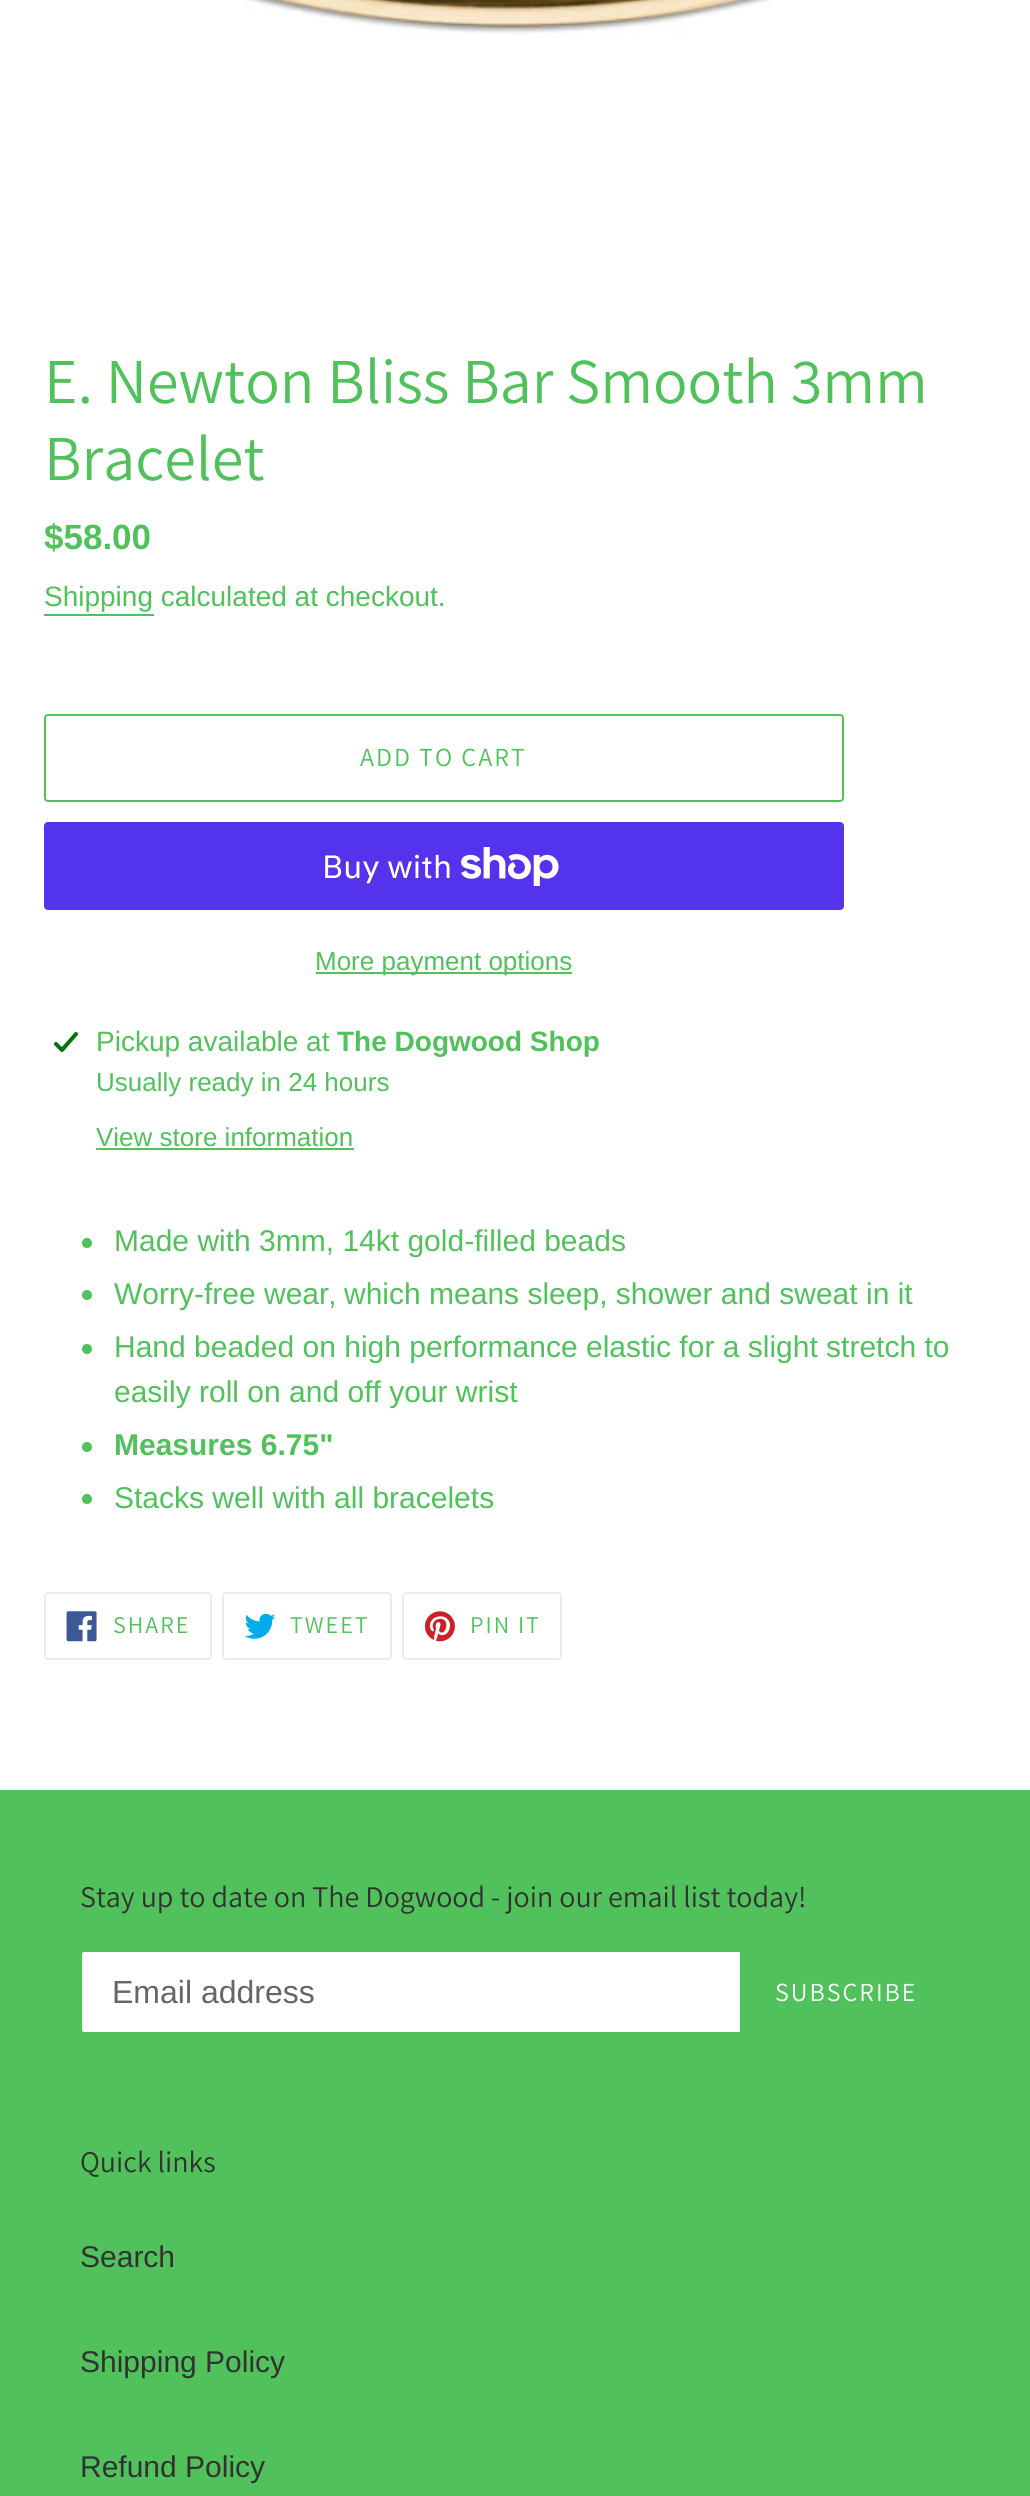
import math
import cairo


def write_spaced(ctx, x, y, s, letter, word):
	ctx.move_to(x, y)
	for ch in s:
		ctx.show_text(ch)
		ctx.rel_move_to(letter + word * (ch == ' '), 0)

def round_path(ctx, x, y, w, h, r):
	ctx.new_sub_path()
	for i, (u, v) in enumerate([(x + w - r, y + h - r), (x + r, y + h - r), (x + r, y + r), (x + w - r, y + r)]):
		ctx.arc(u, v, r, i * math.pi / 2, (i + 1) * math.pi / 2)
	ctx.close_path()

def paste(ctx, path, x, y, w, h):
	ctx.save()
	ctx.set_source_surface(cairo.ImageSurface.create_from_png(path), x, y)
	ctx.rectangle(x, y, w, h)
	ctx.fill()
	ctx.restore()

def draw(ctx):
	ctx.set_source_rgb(1, 1, 1)
	ctx.paint()
	paste(ctx, 'media/1.png', 244, 0, 529, 38)
	ctx.select_font_face('Assistant')
	ctx.set_font_size(64)
	ctx.set_source_rgb(0.314, 0.757, 0.357)
	ctx.move_to(44, 403)
	ctx.show_text('E. Newton Bliss Bar Smooth 3mm')
	ctx.move_to(44, 480)
	ctx.show_text('Bracelet')
	ctx.select_font_face('Liberation Sans', cairo.FONT_SLANT_NORMAL, cairo.FONT_WEIGHT_BOLD)
	ctx.set_font_size(35)
	ctx.move_to(44, 549)
	ctx.show_text('$58.00')
	ctx.select_font_face('Liberation Sans')
	ctx.set_font_size(28)
	ctx.move_to(44, 606)
	ctx.show_text('Shipping calculated at checkout.')
	ctx.rectangle(44, 614, 110, 2)
	ctx.fill()
	round_path(ctx, 45, 715, 798, 86, 3)
	ctx.stroke()
	ctx.select_font_face('Assistant')
	ctx.set_font_size(26)
	write_spaced(ctx, 360, 766, 'ADD TO CART', 2, 0)
	ctx.set_source_rgb(0.329, 0.2, 0.922)
	round_path(ctx, 44, 822, 800, 88, 4)
	ctx.fill()
	ctx.select_font_face('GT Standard')
	ctx.set_font_size(32)
	ctx.set_source_rgb(1, 1, 1)
	ctx.move_to(322, 878)
	ctx.show_text('Buy with')
	paste(ctx, 'media/2.png', 461, 847, 98, 39)
	ctx.set_source_rgb(0.314, 0.757, 0.357)
	ctx.rectangle(316, 972, 256, 2)
	ctx.fill()
	ctx.select_font_face('Liberation Sans')
	ctx.set_font_size(26)
	ctx.move_to(315, 970)
	ctx.show_text('More payment options')
	paste(ctx, 'media/3.png', 54, 1032, 24, 20)
	ctx.set_font_size(28)
	ctx.move_to(96, 1051)
	ctx.show_text('Pickup available at')
	ctx.select_font_face('Liberation Sans', cairo.FONT_SLANT_NORMAL, cairo.FONT_WEIGHT_BOLD)
	ctx.move_to(337, 1051)
	ctx.show_text('The Dogwood Shop')
	ctx.select_font_face('Liberation Sans')
	ctx.set_font_size(26)
	ctx.move_to(96, 1091)
	ctx.show_text('Usually ready in 24 hours')
	ctx.move_to(96, 1146)
	ctx.show_text('View store information')
	ctx.rectangle(96, 1148, 258, 2)
	ctx.fill()
	ctx.arc(87, 1243, 5, 0, 2 * math.pi)
	ctx.fill()
	ctx.set_font_size(30)
	ctx.move_to(114, 1251)
	ctx.show_text('Made with 3mm, 14kt gold-filled beads')
	ctx.new_path()
	ctx.arc(87, 1295, 5, 0, 2 * math.pi)
	ctx.fill()
	ctx.move_to(114, 1304)
	ctx.show_text('Worry-free wear‚ which means sleep, shower and sweat in it')
	ctx.new_path()
	ctx.arc(87, 1349, 5, 0, 2 * math.pi)
	ctx.fill()
	ctx.move_to(114, 1357)
	ctx.show_text('Hand beaded on high performance elastic for a slight stretch to')
	ctx.move_to(114, 1402)
	ctx.show_text('easily roll on and off your wrist')
	ctx.new_path()
	ctx.arc(87, 1447, 5, 0, 2 * math.pi)
	ctx.fill()
	ctx.select_font_face('Liberation Sans', cairo.FONT_SLANT_NORMAL, cairo.FONT_WEIGHT_BOLD)
	ctx.move_to(114, 1455)
	ctx.show_text('Measures 6.75"')
	ctx.new_path()
	ctx.arc(87, 1499, 5, 0, 2 * math.pi)
	ctx.fill()
	ctx.select_font_face('Liberation Sans')
	ctx.move_to(114, 1508)
	ctx.show_text('Stacks well with all bracelets')
	round_path(ctx, 45, 1593, 166, 66, 3)
	ctx.set_source_rgb(0.922, 0.922, 0.922)
	ctx.stroke()
	paste(ctx, 'media/4.png', 66, 1611, 31, 31)
	ctx.select_font_face('Assistant')
	ctx.set_font_size(24)
	ctx.set_source_rgb(0.314, 0.757, 0.357)
	write_spaced(ctx, 113, 1633, 'SHARE', 2, 0)
	round_path(ctx, 223, 1593, 168, 66, 3)
	ctx.set_source_rgb(0.922, 0.922, 0.922)
	ctx.stroke()
	paste(ctx, 'media/5.png', 244, 1613, 32, 26)
	ctx.set_source_rgb(0.314, 0.757, 0.357)
	write_spaced(ctx, 290, 1633, 'TWEET', 2, 0)
	round_path(ctx, 403, 1593, 158, 66, 3)
	ctx.set_source_rgb(0.922, 0.922, 0.922)
	ctx.stroke()
	paste(ctx, 'media/6.png', 424, 1611, 31, 31)
	ctx.set_source_rgb(0.314, 0.757, 0.357)
	write_spaced(ctx, 470, 1633, 'PIN IT', 2, 0)
	ctx.rectangle(0, 1790, 1030, 706)
	ctx.fill()
	ctx.set_font_size(30)
	ctx.set_source_rgb(0.2, 0.196, 0.196)
	ctx.move_to(80, 1907)
	ctx.show_text('Stay up to date on The Dogwood - join our email list today!')
	ctx.set_source_rgb(1, 1, 1)
	ctx.new_path()
	ctx.move_to(84, 1951)
	ctx.line_to(741, 1951)
	ctx.line_to(741, 2033)
	ctx.line_to(84, 2033)
	ctx.curve_to(82.5, 2033, 81, 2031.5, 81, 2030)
	ctx.line_to(81, 1954)
	ctx.curve_to(81, 1952.5, 82.5, 1951, 84, 1951)
	ctx.close_path()
	ctx.fill_preserve()
	ctx.set_source_rgb(0.314, 0.757, 0.357)
	ctx.stroke()
	ctx.select_font_face('Liberation Sans')
	ctx.set_font_size(32)
	ctx.set_source_rgb(0.4, 0.4, 0.4)
	ctx.move_to(112, 2003)
	ctx.show_text('Email address')
	ctx.select_font_face('Assistant')
	ctx.set_font_size(26)
	ctx.set_source_rgb(1, 1, 1)
	write_spaced(ctx, 775, 2001, 'SUBSCRIBE', 2, 0)
	ctx.set_font_size(30)
	ctx.set_source_rgb(0.2, 0.196, 0.196)
	ctx.move_to(80, 2172)
	ctx.show_text('Quick links')
	ctx.select_font_face('Liberation Sans')
	for x, y, s in [
		(80, 2267, 'Search'),
		(80, 2372, 'Shipping Policy'),
		(80, 2477, 'Refund Policy'),
	]:
		ctx.move_to(x, y)
		ctx.show_text(s)


surface = cairo.ImageSurface(cairo.FORMAT_RGB24, 1030, 2496)
ctx = cairo.Context(surface)
options = cairo.FontOptions()
options.set_hint_metrics(cairo.HINT_METRICS_OFF)
options.set_hint_style(cairo.HINT_STYLE_NONE)
ctx.set_font_options(options)
ctx.set_miter_limit(4)
draw(ctx)
surface.write_to_png('image.png')
